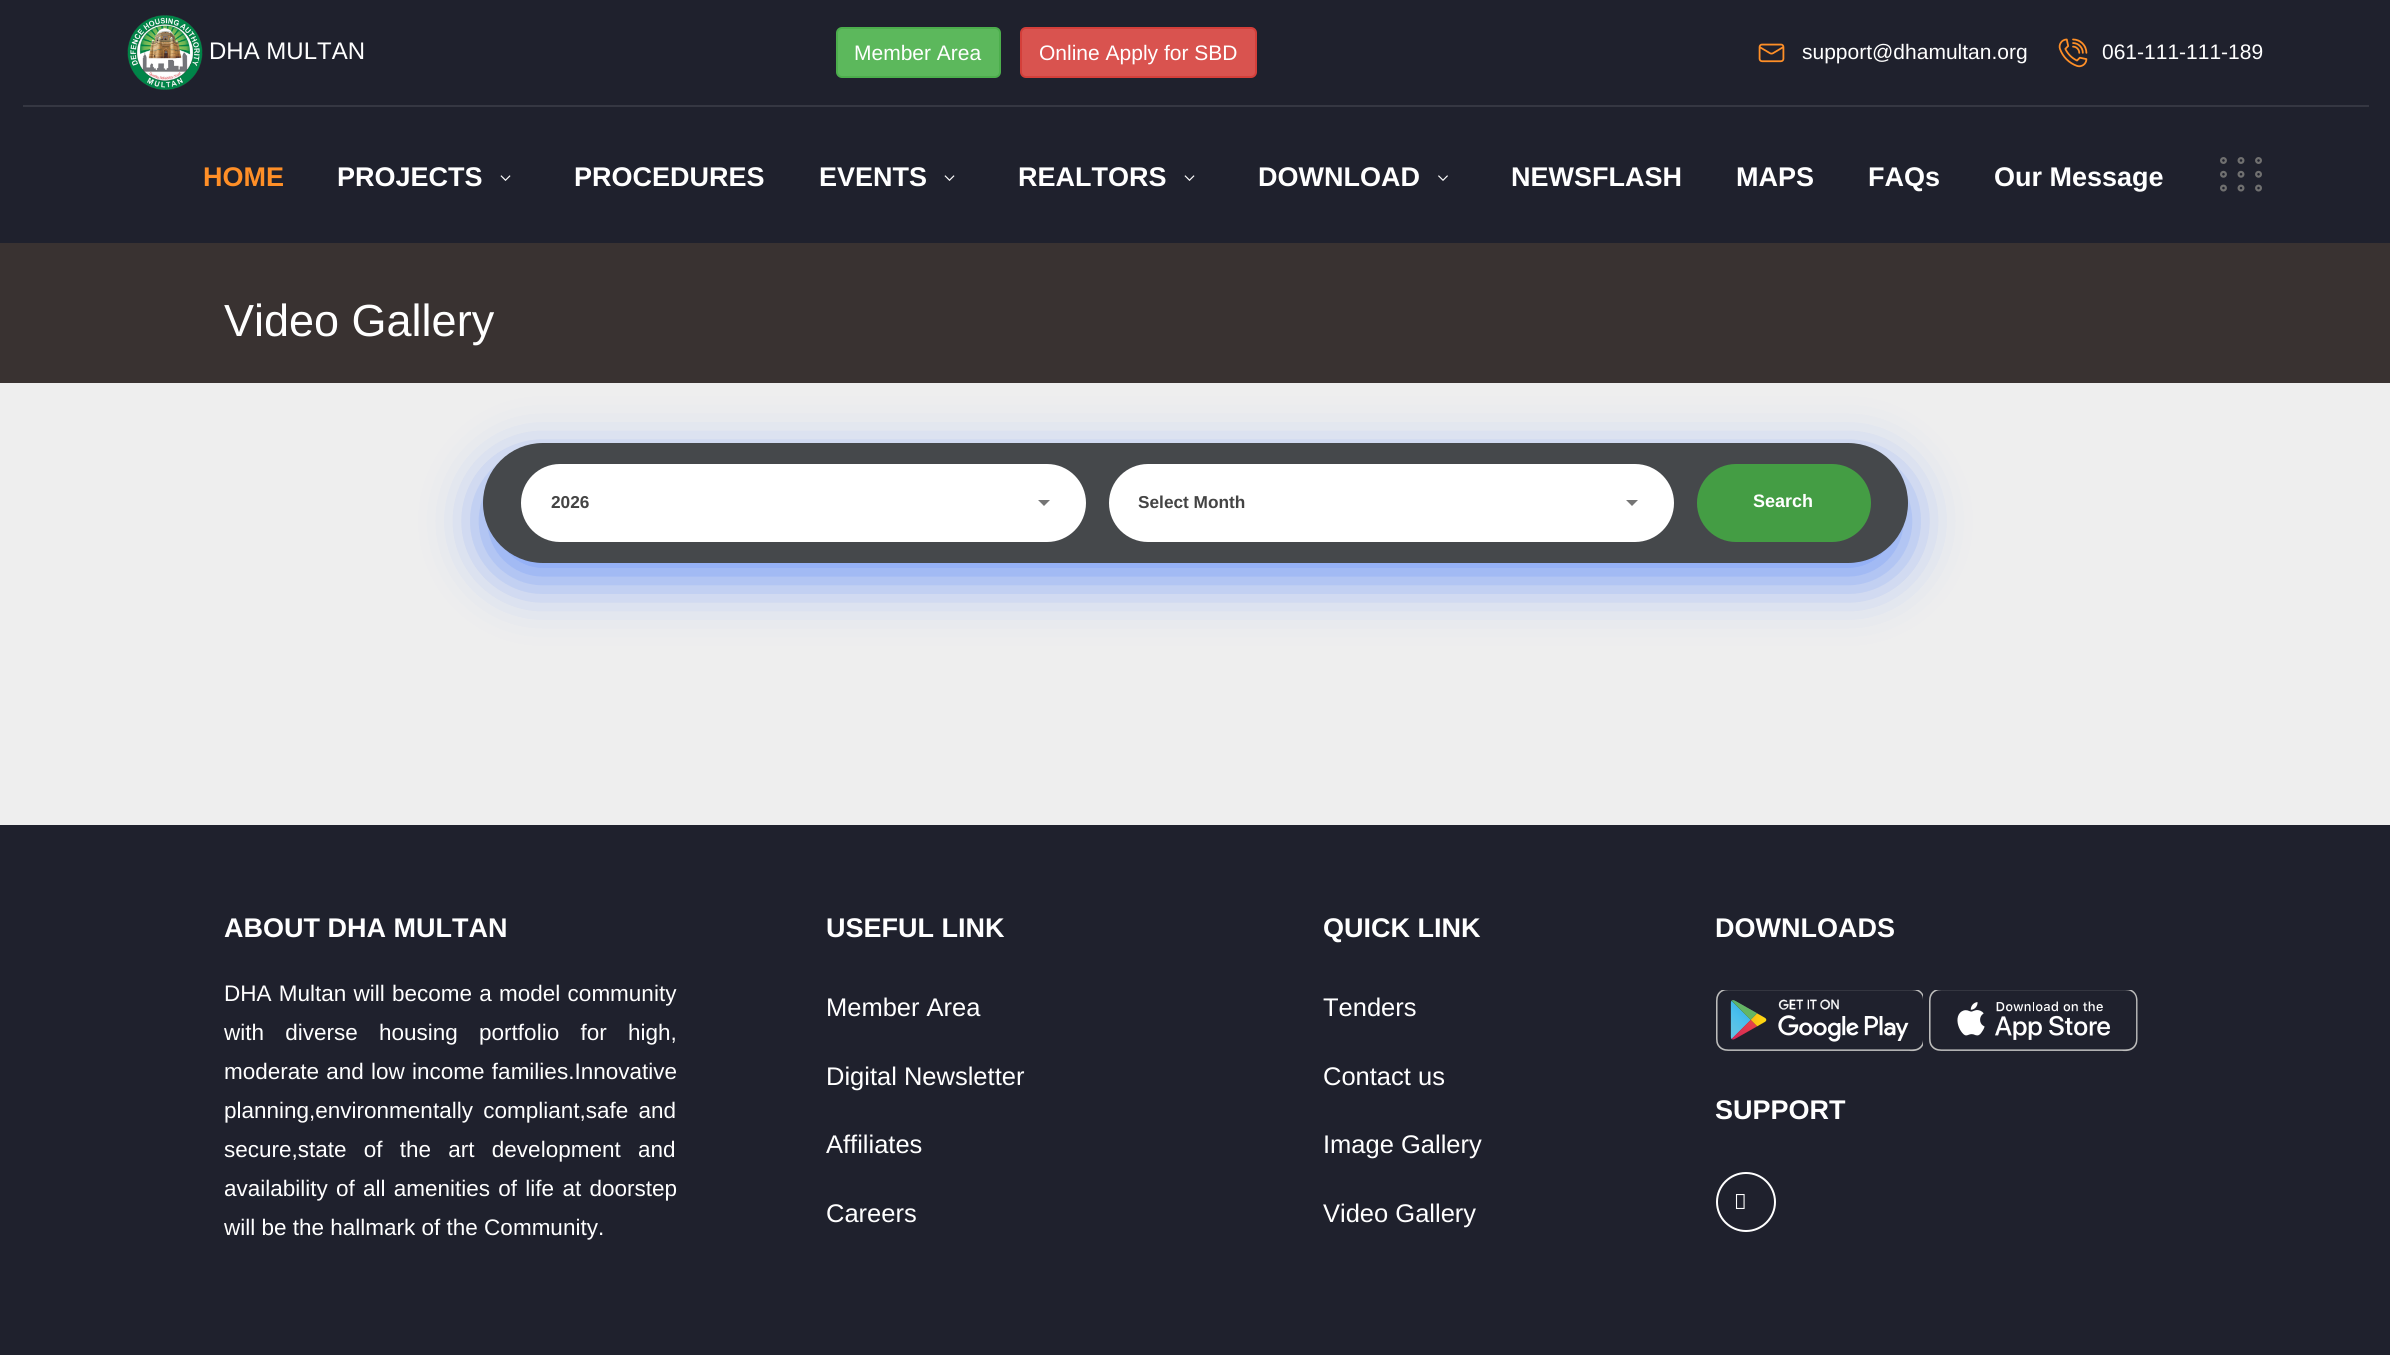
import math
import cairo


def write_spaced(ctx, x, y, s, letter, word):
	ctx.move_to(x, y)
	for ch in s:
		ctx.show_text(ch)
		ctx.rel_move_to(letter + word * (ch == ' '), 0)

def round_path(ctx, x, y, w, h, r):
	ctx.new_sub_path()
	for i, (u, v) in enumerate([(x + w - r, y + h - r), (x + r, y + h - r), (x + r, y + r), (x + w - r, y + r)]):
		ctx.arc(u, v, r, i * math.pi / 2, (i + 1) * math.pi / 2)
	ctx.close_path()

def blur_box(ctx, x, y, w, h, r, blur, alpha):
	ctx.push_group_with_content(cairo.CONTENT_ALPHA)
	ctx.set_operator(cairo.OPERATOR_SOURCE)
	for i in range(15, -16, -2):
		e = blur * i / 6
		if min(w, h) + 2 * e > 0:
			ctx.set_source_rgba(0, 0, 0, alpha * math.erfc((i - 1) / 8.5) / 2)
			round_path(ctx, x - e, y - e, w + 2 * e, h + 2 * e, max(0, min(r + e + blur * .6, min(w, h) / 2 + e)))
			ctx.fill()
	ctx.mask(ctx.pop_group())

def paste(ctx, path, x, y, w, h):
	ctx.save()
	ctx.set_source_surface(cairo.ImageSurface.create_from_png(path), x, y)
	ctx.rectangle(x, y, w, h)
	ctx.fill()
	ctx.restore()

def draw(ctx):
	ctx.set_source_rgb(0.933, 0.933, 0.933)
	ctx.paint()
	ctx.set_source_rgb(0.122, 0.129, 0.176)
	ctx.rectangle(0, 0, 2390, 243)
	ctx.fill()
	ctx.set_source_rgb(0.208, 0.216, 0.259)
	ctx.rectangle(23, 105, 2346, 2)
	ctx.fill()
	paste(ctx, 'media/1.png', 127, 15, 76, 75)
	ctx.select_font_face('Liberation Sans')
	ctx.set_font_size(24)
	ctx.set_source_rgb(1, 1, 1)
	ctx.move_to(209, 59)
	ctx.show_text('DHA MULTAN')
	ctx.set_source_rgb(0.361, 0.722, 0.361)
	round_path(ctx, 837, 28, 163, 49, 5)
	ctx.fill_preserve()
	ctx.set_source_rgb(0.298, 0.682, 0.298)
	ctx.stroke()
	ctx.set_font_size(21)
	ctx.set_source_rgb(1, 1, 1)
	ctx.move_to(854, 60)
	ctx.show_text('Member Area')
	ctx.set_source_rgb(0.851, 0.325, 0.31)
	round_path(ctx, 1021, 28, 235, 49, 5)
	ctx.fill_preserve()
	ctx.set_source_rgb(0.831, 0.247, 0.227)
	ctx.stroke()
	ctx.set_source_rgb(1, 1, 1)
	ctx.move_to(1039, 60)
	ctx.show_text('Online Apply for SBD')
	paste(ctx, 'media/2.png', 1758, 43, 27, 20)
	ctx.move_to(1802, 59)
	ctx.show_text('support@dhamultan.org')
	paste(ctx, 'media/3.png', 2058, 38, 30, 30)
	ctx.move_to(2102, 59)
	ctx.show_text('061-111-111-189')
	ctx.select_font_face('Liberation Sans', cairo.FONT_SLANT_NORMAL, cairo.FONT_WEIGHT_BOLD)
	ctx.set_font_size(27)
	ctx.set_source_rgb(1, 0.561, 0.153)
	ctx.move_to(203, 186)
	ctx.show_text('HOME')
	ctx.set_source_rgb(1, 1, 1)
	ctx.move_to(337, 186)
	ctx.show_text('PROJECTS')
	paste(ctx, 'media/4.png', 500, 175, 11, 6)
	ctx.move_to(574, 186)
	ctx.show_text('PROCEDURES')
	ctx.move_to(819, 186)
	ctx.show_text('EVENTS')
	paste(ctx, 'media/4.png', 944, 175, 11, 6)
	ctx.move_to(1018, 186)
	ctx.show_text('REALTORS')
	paste(ctx, 'media/4.png', 1184, 175, 11, 6)
	ctx.move_to(1258, 186)
	ctx.show_text('DOWNLOAD')
	paste(ctx, 'media/5.png', 1438, 175, 10, 6)
	for x, y, s in [
		(1511, 186, 'NEWSFLASH'),
		(1736, 186, 'MAPS'),
		(1868, 186, 'FAQs'),
		(1994, 186, 'Our Message'),
	]:
		ctx.move_to(x, y)
		ctx.show_text(s)
	paste(ctx, 'media/6.png', 2220, 157, 42, 35)
	ctx.set_source_rgb(0.149, 0.396, 1)
	blur_box(ctx, 483, 461, 1425, 120, 60, 26, 0.6)
	ctx.set_source_rgb(0.224, 0.196, 0.192)
	ctx.rectangle(0, 243, 2390, 140)
	ctx.fill()
	ctx.select_font_face('Liberation Sans')
	ctx.set_font_size(45)
	ctx.set_source_rgb(1, 1, 1)
	ctx.move_to(224, 336)
	ctx.show_text('Video Gallery')
	ctx.set_source_rgb(0.271, 0.282, 0.294)
	round_path(ctx, 483, 443, 1425, 120, 60)
	ctx.fill()
	ctx.set_source_rgb(1, 1, 1)
	round_path(ctx, 521, 464, 565, 78, 39)
	ctx.fill()
	ctx.set_source_rgb(0.459, 0.459, 0.459)
	ctx.new_path()
	ctx.move_to(1038, 500)
	ctx.line_to(1044, 506)
	ctx.line_to(1050, 500)
	ctx.close_path()
	ctx.fill()
	ctx.select_font_face('Liberation Sans', cairo.FONT_SLANT_NORMAL, cairo.FONT_WEIGHT_BOLD)
	ctx.set_font_size(17.25)
	ctx.set_source_rgb(0.267, 0.267, 0.267)
	ctx.move_to(551, 508)
	ctx.show_text('2026')
	ctx.set_source_rgb(1, 1, 1)
	round_path(ctx, 1109, 464, 565, 78, 39)
	ctx.fill()
	ctx.set_source_rgb(0.459, 0.459, 0.459)
	ctx.new_path()
	ctx.move_to(1626, 500)
	ctx.line_to(1632, 506)
	ctx.line_to(1638, 500)
	ctx.close_path()
	ctx.fill()
	ctx.set_source_rgb(0.267, 0.267, 0.267)
	ctx.move_to(1138, 508)
	ctx.show_text('Select Month')
	ctx.set_source_rgb(0.267, 0.616, 0.267)
	round_path(ctx, 1697, 464, 174, 78, 39)
	ctx.fill()
	ctx.set_font_size(18)
	ctx.set_source_rgb(1, 1, 1)
	ctx.move_to(1753, 507)
	ctx.show_text('Search')
	ctx.set_source_rgb(0.122, 0.129, 0.176)
	ctx.rectangle(0, 825, 2390, 530)
	ctx.fill()
	ctx.set_font_size(27)
	ctx.set_source_rgb(1, 1, 1)
	ctx.move_to(224, 937)
	ctx.show_text('ABOUT DHA MULTAN')
	ctx.select_font_face('Liberation Sans')
	ctx.set_font_size(22.5)
	write_spaced(ctx, 224, 1001, 'DHA Multan will become a model community', 0, 1)
	write_spaced(ctx, 224, 1040, 'with diverse housing portfolio for high,', 0, 15)
	write_spaced(ctx, 224, 1079, 'moderate and low income families.Innovative', 0, 1)
	write_spaced(ctx, 224, 1118, 'planning,environmentally compliant,safe and', 0, 4)
	write_spaced(ctx, 224, 1157, 'secure,state of the art development and', 0, 11)
	write_spaced(ctx, 224, 1196, 'availability of all amenities of life at doorstep', 0, 2)
	ctx.move_to(224, 1235)
	ctx.show_text('will be the hallmark of the Community.')
	ctx.select_font_face('Liberation Sans', cairo.FONT_SLANT_NORMAL, cairo.FONT_WEIGHT_BOLD)
	ctx.set_font_size(27)
	ctx.move_to(826, 937)
	ctx.show_text('USEFUL LINK')
	ctx.select_font_face('Liberation Sans')
	ctx.set_font_size(25.5)
	for x, y, s in [
		(826, 1016, 'Member Area'),
		(826, 1085, 'Digital Newsletter'),
		(826, 1153, 'Affiliates'),
		(826, 1222, 'Careers'),
	]:
		ctx.move_to(x, y)
		ctx.show_text(s)
	ctx.select_font_face('Liberation Sans', cairo.FONT_SLANT_NORMAL, cairo.FONT_WEIGHT_BOLD)
	ctx.set_font_size(27)
	ctx.move_to(1323, 937)
	ctx.show_text('QUICK LINK')
	ctx.select_font_face('Liberation Sans')
	ctx.set_font_size(25.5)
	for x, y, s in [
		(1323, 1016, 'Tenders'),
		(1323, 1085, 'Contact us'),
		(1323, 1153, 'Image Gallery'),
		(1323, 1222, 'Video Gallery'),
	]:
		ctx.move_to(x, y)
		ctx.show_text(s)
	ctx.select_font_face('Liberation Sans', cairo.FONT_SLANT_NORMAL, cairo.FONT_WEIGHT_BOLD)
	ctx.set_font_size(27)
	ctx.move_to(1715, 937)
	ctx.show_text('DOWNLOADS')
	paste(ctx, 'media/7.png', 1716, 990, 207, 62)
	paste(ctx, 'media/8.png', 1929, 990, 209, 62)
	ctx.move_to(1715, 1119)
	ctx.show_text('SUPPORT')
	ctx.new_path()
	ctx.arc(1746, 1202, 29, 0, 2 * math.pi)
	ctx.stroke()
	paste(ctx, 'media/9.png', 1735, 1194, 10, 15)


surface = cairo.ImageSurface(cairo.FORMAT_RGB24, 2390, 1355)
ctx = cairo.Context(surface)
options = cairo.FontOptions()
options.set_hint_metrics(cairo.HINT_METRICS_OFF)
options.set_hint_style(cairo.HINT_STYLE_NONE)
ctx.set_font_options(options)
ctx.set_miter_limit(4)
draw(ctx)
surface.write_to_png('image.png')
